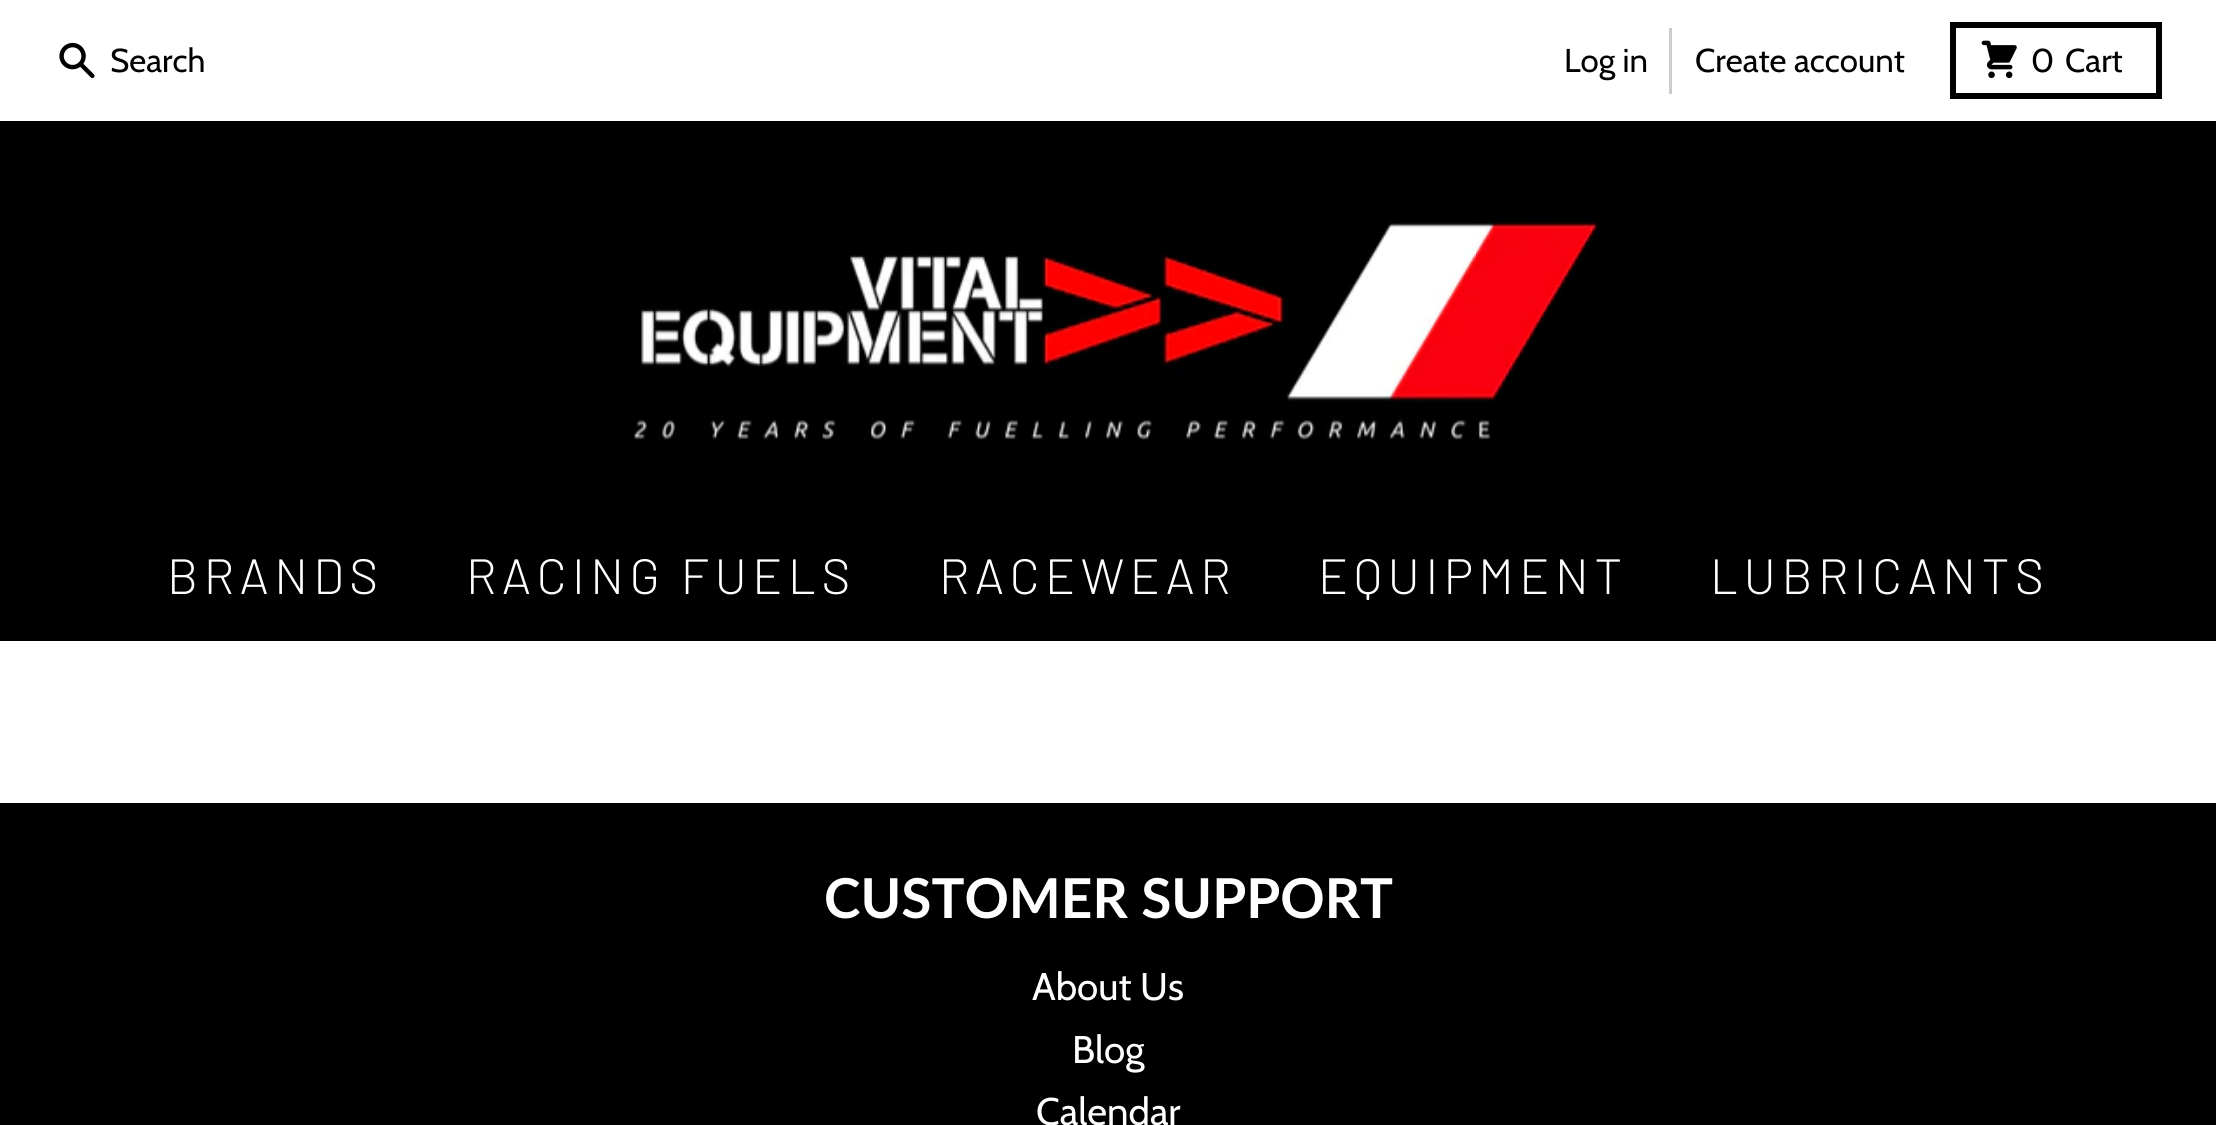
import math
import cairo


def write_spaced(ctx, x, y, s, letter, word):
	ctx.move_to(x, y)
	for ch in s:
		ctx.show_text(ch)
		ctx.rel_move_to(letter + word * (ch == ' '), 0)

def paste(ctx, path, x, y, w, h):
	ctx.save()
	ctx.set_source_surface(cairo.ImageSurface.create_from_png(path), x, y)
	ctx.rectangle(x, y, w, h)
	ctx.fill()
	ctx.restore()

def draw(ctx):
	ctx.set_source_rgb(0, 0, 0)
	ctx.paint()
	ctx.set_source_rgb(1, 1, 1)
	ctx.rectangle(0, 0, 2216, 121)
	ctx.fill()
	paste(ctx, 'media/1.png', 59, 42, 36, 37)
	ctx.select_font_face('Cabin')
	ctx.set_font_size(33)
	ctx.set_source_rgb(0, 0, 0)
	ctx.move_to(110, 72)
	ctx.show_text('Search')
	ctx.move_to(1564, 72)
	ctx.show_text('Log in')
	ctx.set_source_rgb(0.8, 0.8, 0.8)
	ctx.rectangle(1669, 28, 3, 66)
	ctx.fill()
	ctx.set_source_rgb(0, 0, 0)
	ctx.move_to(1695, 72)
	ctx.show_text('Create account')
	ctx.rectangle(1953, 25, 206, 71)
	ctx.set_line_width(6)
	ctx.stroke()
	paste(ctx, 'media/2.png', 1981, 40, 36, 39)
	ctx.move_to(2031, 72)
	ctx.show_text('0')
	ctx.move_to(2065, 72)
	ctx.show_text('Cart')
	paste(ctx, 'media/3.png', 634, 221, 967, 220)
	ctx.select_font_face('Barlow Light')
	ctx.set_font_size(49.5)
	ctx.set_source_rgb(1, 1, 1)
	for x, y, s in [
		(167, 594, 'BRANDS'),
		(466, 594, 'RACING FUELS'),
		(939, 594, 'RACEWEAR'),
		(1318, 594, 'EQUIPMENT'),
		(1710, 594, 'LUBRICANTS'),
	]:
		write_spaced(ctx, x, y, s, 5.5, 0)
	ctx.rectangle(0, 641, 2216, 162)
	ctx.fill()
	ctx.select_font_face('Lato', cairo.FONT_SLANT_NORMAL, cairo.FONT_WEIGHT_BOLD)
	ctx.set_font_size(55)
	ctx.move_to(824, 918)
	ctx.show_text('CUSTOMER SUPPORT')
	ctx.select_font_face('Cabin')
	ctx.set_font_size(38.5)
	for x, y, s in [
		(1032, 1000, 'About Us'),
		(1072, 1063, 'Blog'),
		(1036, 1125, 'Calendar'),
	]:
		ctx.move_to(x, y)
		ctx.show_text(s)


surface = cairo.ImageSurface(cairo.FORMAT_RGB24, 2216, 1125)
ctx = cairo.Context(surface)
options = cairo.FontOptions()
options.set_hint_metrics(cairo.HINT_METRICS_OFF)
options.set_hint_style(cairo.HINT_STYLE_NONE)
ctx.set_font_options(options)
ctx.set_miter_limit(4)
draw(ctx)
surface.write_to_png('image.png')
